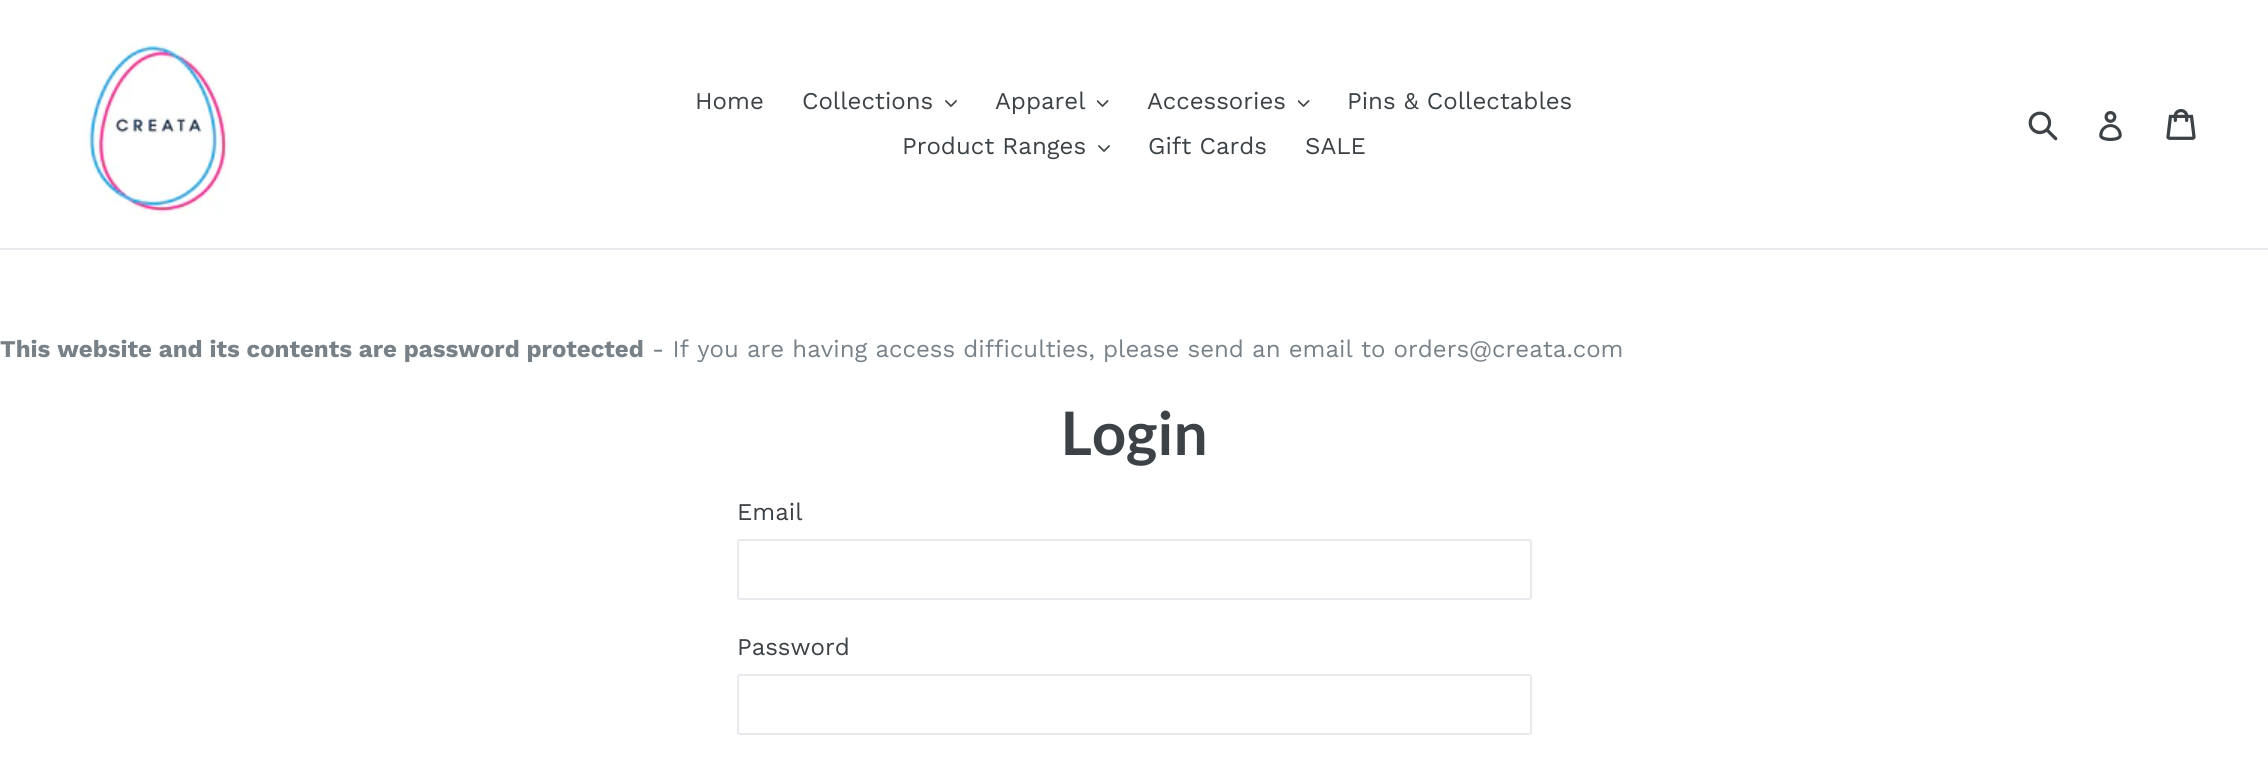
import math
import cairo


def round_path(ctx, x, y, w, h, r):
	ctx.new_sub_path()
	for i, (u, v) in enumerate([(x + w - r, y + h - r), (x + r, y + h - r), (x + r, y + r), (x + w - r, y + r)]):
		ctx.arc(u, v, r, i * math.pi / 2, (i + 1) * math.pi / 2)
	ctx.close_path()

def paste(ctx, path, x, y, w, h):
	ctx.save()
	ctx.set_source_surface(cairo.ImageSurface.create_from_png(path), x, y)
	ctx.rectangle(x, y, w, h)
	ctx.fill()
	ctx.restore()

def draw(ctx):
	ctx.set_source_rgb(1, 1, 1)
	ctx.paint()
	ctx.set_source_rgb(0.91, 0.914, 0.922)
	ctx.rectangle(0, 248, 2268, 2)
	ctx.fill()
	paste(ctx, 'media/1.png', 83, 45, 145, 170)
	ctx.select_font_face('Work Sans')
	ctx.set_font_size(24)
	ctx.set_source_rgb(0.239, 0.259, 0.275)
	ctx.move_to(695, 109)
	ctx.show_text('Home')
	ctx.move_to(802, 109)
	ctx.show_text('Collections')
	paste(ctx, 'media/2.png', 945, 100, 12, 7)
	ctx.move_to(995, 109)
	ctx.show_text('Apparel')
	paste(ctx, 'media/3.png', 1097, 100, 12, 7)
	ctx.move_to(1147, 109)
	ctx.show_text('Accessories')
	paste(ctx, 'media/3.png', 1298, 100, 12, 7)
	ctx.move_to(1347, 109)
	ctx.show_text('Pins & Collectables')
	ctx.move_to(902, 154)
	ctx.show_text('Product Ranges')
	paste(ctx, 'media/2.png', 1098, 145, 12, 7)
	ctx.move_to(1148, 154)
	ctx.show_text('Gift Cards')
	ctx.move_to(1305, 154)
	ctx.show_text('SALE')
	paste(ctx, 'media/4.png', 2028, 111, 30, 30)
	paste(ctx, 'media/5.png', 2099, 111, 23, 30)
	paste(ctx, 'media/6.png', 2166, 108, 30, 32)
	ctx.select_font_face('Work Sans', cairo.FONT_SLANT_NORMAL, cairo.FONT_WEIGHT_BOLD)
	ctx.set_source_rgb(0.471, 0.506, 0.533)
	ctx.move_to(0, 357)
	ctx.show_text('This website and its contents are password protected')
	ctx.select_font_face('Work Sans')
	ctx.move_to(652, 357)
	ctx.show_text('- If you are having access difficulties, please send an email to orders@creata.com')
	ctx.select_font_face('Lato', cairo.FONT_SLANT_NORMAL, cairo.FONT_WEIGHT_BOLD)
	ctx.set_font_size(60)
	ctx.set_source_rgb(0.239, 0.259, 0.275)
	ctx.move_to(1061, 455)
	ctx.show_text('Login')
	ctx.select_font_face('Work Sans')
	ctx.set_font_size(24)
	ctx.move_to(737, 520)
	ctx.show_text('Email')
	round_path(ctx, 738, 540, 793, 59, 2)
	ctx.set_source_rgb(0.91, 0.914, 0.922)
	ctx.stroke()
	ctx.set_source_rgb(0.239, 0.259, 0.275)
	ctx.move_to(737, 655)
	ctx.show_text('Password')
	round_path(ctx, 738, 675, 793, 59, 2)
	ctx.set_source_rgb(0.91, 0.914, 0.922)
	ctx.stroke()


surface = cairo.ImageSurface(cairo.FORMAT_RGB24, 2268, 766)
ctx = cairo.Context(surface)
options = cairo.FontOptions()
options.set_hint_metrics(cairo.HINT_METRICS_OFF)
options.set_hint_style(cairo.HINT_STYLE_NONE)
ctx.set_font_options(options)
ctx.set_miter_limit(4)
draw(ctx)
surface.write_to_png('image.png')
